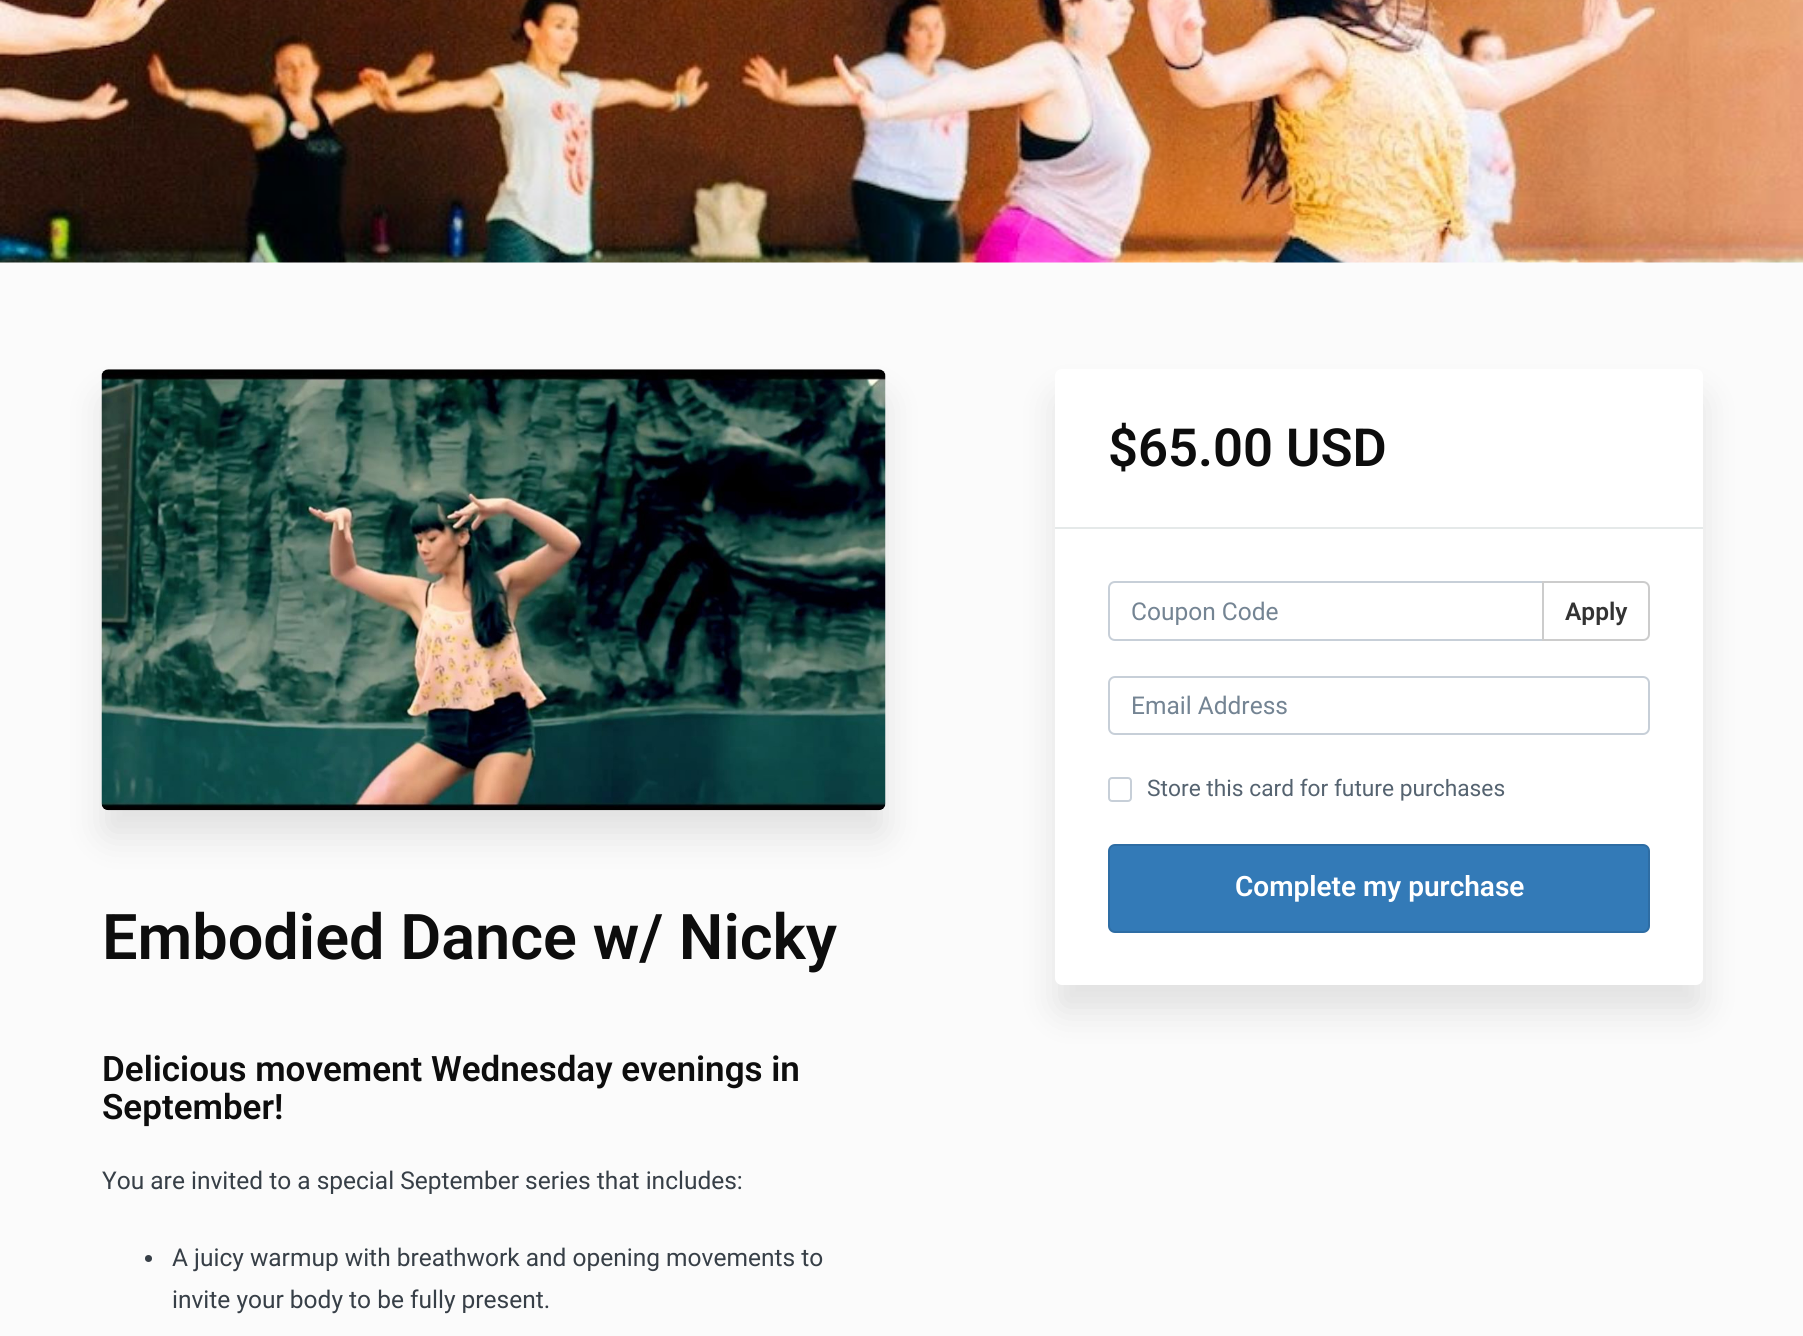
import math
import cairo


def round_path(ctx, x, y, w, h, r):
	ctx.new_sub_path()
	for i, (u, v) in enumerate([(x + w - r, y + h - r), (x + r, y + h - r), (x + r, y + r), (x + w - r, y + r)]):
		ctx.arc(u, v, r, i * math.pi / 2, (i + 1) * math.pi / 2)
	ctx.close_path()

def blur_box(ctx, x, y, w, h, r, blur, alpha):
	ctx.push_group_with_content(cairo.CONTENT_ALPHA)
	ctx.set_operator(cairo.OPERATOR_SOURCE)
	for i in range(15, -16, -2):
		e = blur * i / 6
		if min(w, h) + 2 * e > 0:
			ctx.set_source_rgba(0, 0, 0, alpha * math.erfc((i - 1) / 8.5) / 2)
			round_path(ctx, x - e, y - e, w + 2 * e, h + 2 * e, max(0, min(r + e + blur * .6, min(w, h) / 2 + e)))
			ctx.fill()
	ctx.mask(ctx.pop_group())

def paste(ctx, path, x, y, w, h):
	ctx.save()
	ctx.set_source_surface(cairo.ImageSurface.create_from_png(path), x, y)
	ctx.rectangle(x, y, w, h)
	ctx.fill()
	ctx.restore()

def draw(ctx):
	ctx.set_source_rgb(0.984, 0.984, 0.984)
	ctx.paint()
	paste(ctx, 'media/1.png', 0, 0, 1803, 263)
	ctx.set_source_rgb(0, 0, 0)
	blur_box(ctx, 1055, 396, 648, 616, 7, 17.5, 0.1)
	ctx.set_source_rgb(1, 1, 1)
	round_path(ctx, 1055, 369, 648, 616, 7)
	ctx.fill()
	ctx.set_source_rgb(0.898, 0.914, 0.914)
	ctx.rectangle(1055, 527, 648, 2)
	ctx.fill()
	ctx.select_font_face('Roboto SemiBold')
	ctx.set_font_size(52.5)
	ctx.set_source_rgb(0.051, 0.051, 0.051)
	ctx.move_to(1108, 466)
	ctx.show_text('$65.00 USD')
	ctx.new_path()
	ctx.move_to(1115, 582)
	ctx.line_to(1543, 582)
	ctx.line_to(1543, 640)
	ctx.line_to(1115, 640)
	ctx.curve_to(1111.5, 640, 1109, 637.5, 1109, 634)
	ctx.line_to(1109, 588)
	ctx.curve_to(1109, 584.5, 1111.5, 582, 1115, 582)
	ctx.close_path()
	ctx.set_source_rgb(0.78, 0.812, 0.847)
	ctx.stroke()
	ctx.select_font_face('Roboto')
	ctx.set_font_size(24.5)
	ctx.set_source_rgb(0.455, 0.518, 0.576)
	ctx.move_to(1131, 620)
	ctx.show_text('Coupon Code')
	ctx.set_source_rgb(1, 1, 1)
	ctx.new_path()
	ctx.move_to(1543, 582)
	ctx.line_to(1643, 582)
	ctx.curve_to(1646.5, 582, 1649, 584.5, 1649, 588)
	ctx.line_to(1649, 634)
	ctx.curve_to(1649, 637.5, 1646.5, 640, 1643, 640)
	ctx.line_to(1543, 640)
	ctx.close_path()
	ctx.fill_preserve()
	ctx.set_source_rgb(0.8, 0.8, 0.8)
	ctx.stroke()
	ctx.select_font_face('Roboto SemiBold')
	ctx.set_source_rgb(0.2, 0.2, 0.2)
	ctx.move_to(1565, 620)
	ctx.show_text('Apply')
	round_path(ctx, 1109, 677, 540, 57, 6)
	ctx.set_source_rgb(0.78, 0.812, 0.847)
	ctx.stroke()
	ctx.select_font_face('Roboto')
	ctx.set_source_rgb(0.455, 0.518, 0.576)
	ctx.move_to(1131, 714)
	ctx.show_text('Email Address')
	round_path(ctx, 1109, 778, 22, 23, 3)
	ctx.set_source_rgb(0.78, 0.812, 0.847)
	ctx.stroke()
	ctx.set_font_size(22.75)
	ctx.set_source_rgb(0.333, 0.388, 0.439)
	ctx.move_to(1147, 796)
	ctx.show_text('Store this card for future purchases')
	ctx.set_source_rgb(0.2, 0.478, 0.718)
	round_path(ctx, 1109, 845, 540, 87, 6)
	ctx.fill_preserve()
	ctx.set_source_rgb(0.18, 0.427, 0.643)
	ctx.stroke()
	ctx.select_font_face('Roboto SemiBold')
	ctx.set_font_size(28)
	ctx.set_source_rgb(1, 1, 1)
	ctx.move_to(1235, 896)
	ctx.show_text('Complete my purchase')
	ctx.set_source_rgb(0, 0, 0)
	blur_box(ctx, 102, 396, 784, 441, 7, 17.5, 0.1)
	paste(ctx, 'media/2.png', 101, 369, 785, 442)
	ctx.set_font_size(63)
	ctx.set_source_rgb(0.051, 0.051, 0.051)
	ctx.move_to(102, 959)
	ctx.show_text('Embodied Dance w/ Nicky')
	ctx.set_font_size(35)
	ctx.move_to(102, 1081)
	ctx.show_text('Delicious movement Wednesday evenings in')
	ctx.move_to(102, 1119)
	ctx.show_text('September!')
	ctx.select_font_face('Roboto')
	ctx.set_font_size(24.5)
	ctx.set_source_rgb(0.216, 0.247, 0.278)
	ctx.move_to(102, 1189)
	ctx.show_text('You are invited to a special September series that includes:')
	ctx.new_path()
	ctx.arc(148.5, 1258.5, 3.5, 0, 2 * math.pi)
	ctx.fill()
	ctx.move_to(172, 1266)
	ctx.show_text('A juicy warmup with breathwork and opening movements to')
	ctx.move_to(172, 1308)
	ctx.show_text('invite your body to be fully present.')


surface = cairo.ImageSurface(cairo.FORMAT_RGB24, 1803, 1336)
ctx = cairo.Context(surface)
options = cairo.FontOptions()
options.set_hint_metrics(cairo.HINT_METRICS_OFF)
options.set_hint_style(cairo.HINT_STYLE_NONE)
ctx.set_font_options(options)
ctx.set_miter_limit(4)
draw(ctx)
surface.write_to_png('image.png')
